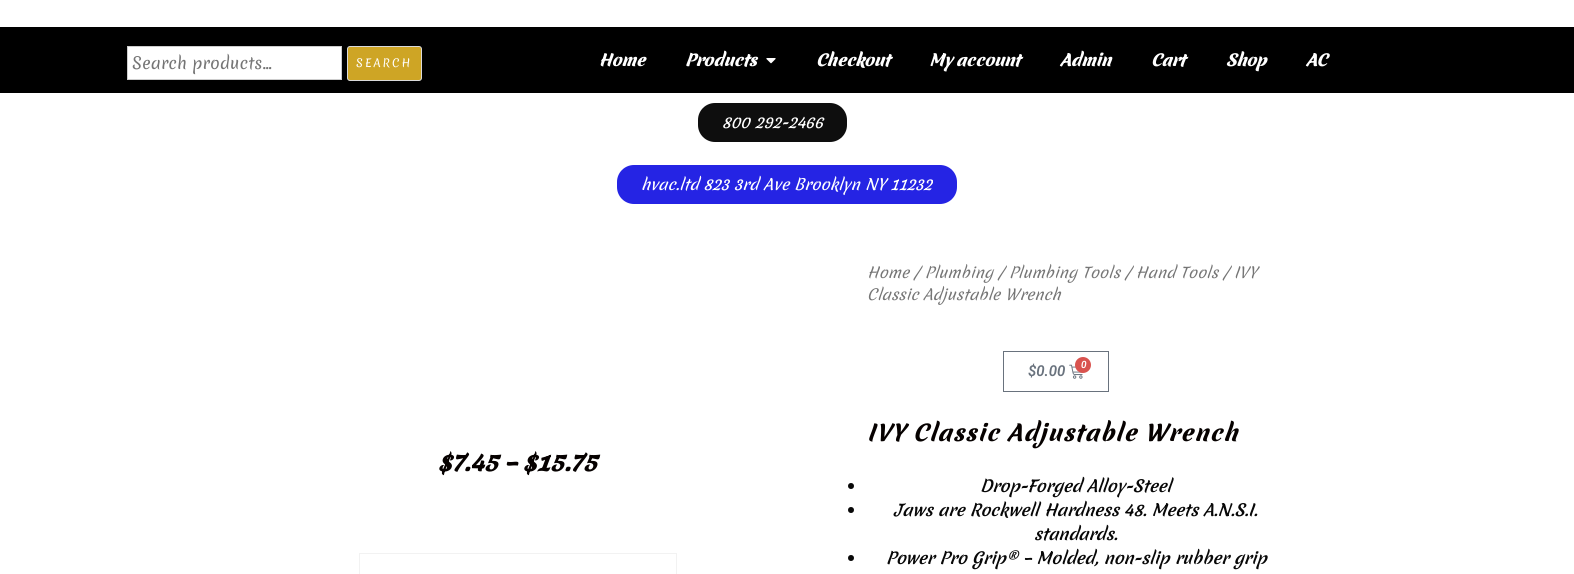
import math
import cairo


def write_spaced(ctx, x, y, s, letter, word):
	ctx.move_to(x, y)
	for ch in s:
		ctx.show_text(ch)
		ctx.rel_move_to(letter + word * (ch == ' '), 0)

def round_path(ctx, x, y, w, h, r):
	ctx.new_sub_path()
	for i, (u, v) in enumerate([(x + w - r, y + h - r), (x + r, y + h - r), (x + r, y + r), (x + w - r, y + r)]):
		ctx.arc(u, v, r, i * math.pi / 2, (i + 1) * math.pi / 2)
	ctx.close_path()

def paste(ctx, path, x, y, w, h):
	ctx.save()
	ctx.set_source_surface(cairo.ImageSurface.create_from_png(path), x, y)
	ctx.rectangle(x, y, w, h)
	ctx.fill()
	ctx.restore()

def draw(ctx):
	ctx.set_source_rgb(1, 1, 1)
	ctx.paint()
	ctx.set_source_rgb(0, 0, 0)
	ctx.rectangle(0, 27, 1574, 66)
	ctx.fill()
	ctx.set_source_rgb(1, 1, 1)
	ctx.rectangle(127.5, 46.5, 214, 33)
	ctx.fill_preserve()
	ctx.set_source_rgb(0.804, 0.804, 0.804)
	ctx.set_line_width(1)
	ctx.stroke()
	ctx.select_font_face('Merienda')
	ctx.set_font_size(16)
	ctx.set_source_rgb(0.459, 0.459, 0.459)
	ctx.move_to(132, 69)
	ctx.show_text('Search products…')
	ctx.set_source_rgb(0.808, 0.647, 0.145)
	round_path(ctx, 347.5, 46.5, 74, 34, 2.5)
	ctx.fill_preserve()
	ctx.set_source_rgb(0.855, 0.855, 0.855)
	ctx.stroke()
	ctx.set_font_size(11)
	ctx.set_source_rgb(1, 1, 1)
	write_spaced(ctx, 356, 67, 'SEARCH', 2, 0)
	ctx.set_source_rgb(0.145, 0.141, 0.894)
	round_path(ctx, 617, 165, 340, 39, 17)
	ctx.fill()
	ctx.select_font_face('Merienda Medium', cairo.FONT_SLANT_ITALIC)
	ctx.set_font_size(15)
	ctx.set_source_rgb(1, 1, 1)
	ctx.move_to(641, 190)
	ctx.show_text('hvac.ltd 823 3rd Ave Brooklyn NY 11232')
	ctx.select_font_face('Merienda Black', cairo.FONT_SLANT_ITALIC)
	ctx.set_font_size(16)
	write_spaced(ctx, 599, 66, 'Home', -0.5, 0)
	write_spaced(ctx, 685, 66, 'Products', -0.5, 0)
	paste(ctx, 'media/1.png', 766, 58, 10, 6)
	for x, y, s in [
		(816, 66, 'Checkout'),
		(929, 66, 'My account'),
		(1060, 66, 'Admin'),
		(1151, 66, 'Cart'),
		(1226, 66, 'Shop'),
		(1306, 66, 'AC'),
	]:
		write_spaced(ctx, x, y, s, -0.5, 0)
	ctx.set_source_rgb(0.055, 0.055, 0.055)
	round_path(ctx, 698, 103, 149, 39, 17)
	ctx.fill()
	ctx.select_font_face('Merienda Medium', cairo.FONT_SLANT_ITALIC)
	ctx.set_font_size(15)
	ctx.set_source_rgb(1, 1, 1)
	ctx.move_to(722, 128)
	ctx.show_text('800 292-2466')
	ctx.select_font_face('Merienda Black', cairo.FONT_SLANT_ITALIC)
	ctx.set_font_size(23)
	ctx.set_source_rgb(0.024, 0.004, 0)
	ctx.move_to(438, 471)
	ctx.show_text('$7.45 – $15.75')
	ctx.rectangle(359.5, 553.5, 317, 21)
	ctx.set_source_rgb(0.949, 0.949, 0.949)
	ctx.stroke()
	ctx.select_font_face('Merienda', cairo.FONT_SLANT_ITALIC)
	ctx.set_font_size(14.75)
	ctx.set_source_rgb(0.459, 0.459, 0.459)
	ctx.move_to(867, 278)
	ctx.show_text('Home / Plumbing / Plumbing Tools / Hand Tools / IVY')
	ctx.move_to(867, 300)
	ctx.show_text('Classic Adjustable Wrench')
	ctx.rectangle(1003.5, 351.5, 105, 40)
	ctx.set_source_rgb(0.412, 0.447, 0.49)
	ctx.stroke()
	ctx.select_font_face('Roboto SemiBold', cairo.FONT_SLANT_ITALIC)
	ctx.set_font_size(15)
	ctx.move_to(1028, 376)
	ctx.show_text('$0.00')
	paste(ctx, 'media/2.png', 1069, 364, 14, 15)
	ctx.set_source_rgb(0.851, 0.325, 0.31)
	ctx.arc(1083, 365, 8, 0, 2 * math.pi)
	ctx.fill()
	ctx.set_font_size(10)
	ctx.set_source_rgb(1, 1, 1)
	ctx.move_to(1081, 368)
	ctx.show_text('0')
	ctx.select_font_face('Merienda ExtraBold', cairo.FONT_SLANT_ITALIC)
	ctx.set_font_size(22)
	ctx.set_source_rgb(0.024, 0.004, 0)
	write_spaced(ctx, 867, 441, 'IVY Classic Adjustable Wrench', 1, 0)
	ctx.set_source_rgb(0.035, 0.035, 0.035)
	ctx.new_path()
	ctx.arc(851, 486, 3, 0, 2 * math.pi)
	ctx.fill()
	ctx.select_font_face('Merienda', cairo.FONT_SLANT_ITALIC, cairo.FONT_WEIGHT_BOLD)
	ctx.set_font_size(16)
	ctx.move_to(980, 492)
	ctx.show_text('Drop-Forged Alloy-Steel')
	ctx.new_path()
	ctx.arc(851, 510, 3, 0, 2 * math.pi)
	ctx.fill()
	ctx.move_to(894, 516)
	ctx.show_text('Jaws are Rockwell Hardness 48. Meets A.N.S.I.')
	ctx.move_to(1034, 540)
	ctx.show_text('standards.')
	ctx.new_path()
	ctx.arc(851, 558, 3, 0, 2 * math.pi)
	ctx.fill()
	ctx.move_to(886, 564)
	ctx.show_text('Power Pro Grip® – Molded, non-slip rubber grip')


surface = cairo.ImageSurface(cairo.FORMAT_RGB24, 1574, 574)
ctx = cairo.Context(surface)
options = cairo.FontOptions()
options.set_hint_metrics(cairo.HINT_METRICS_OFF)
options.set_hint_style(cairo.HINT_STYLE_NONE)
ctx.set_font_options(options)
ctx.set_miter_limit(4)
draw(ctx)
surface.write_to_png('image.png')
